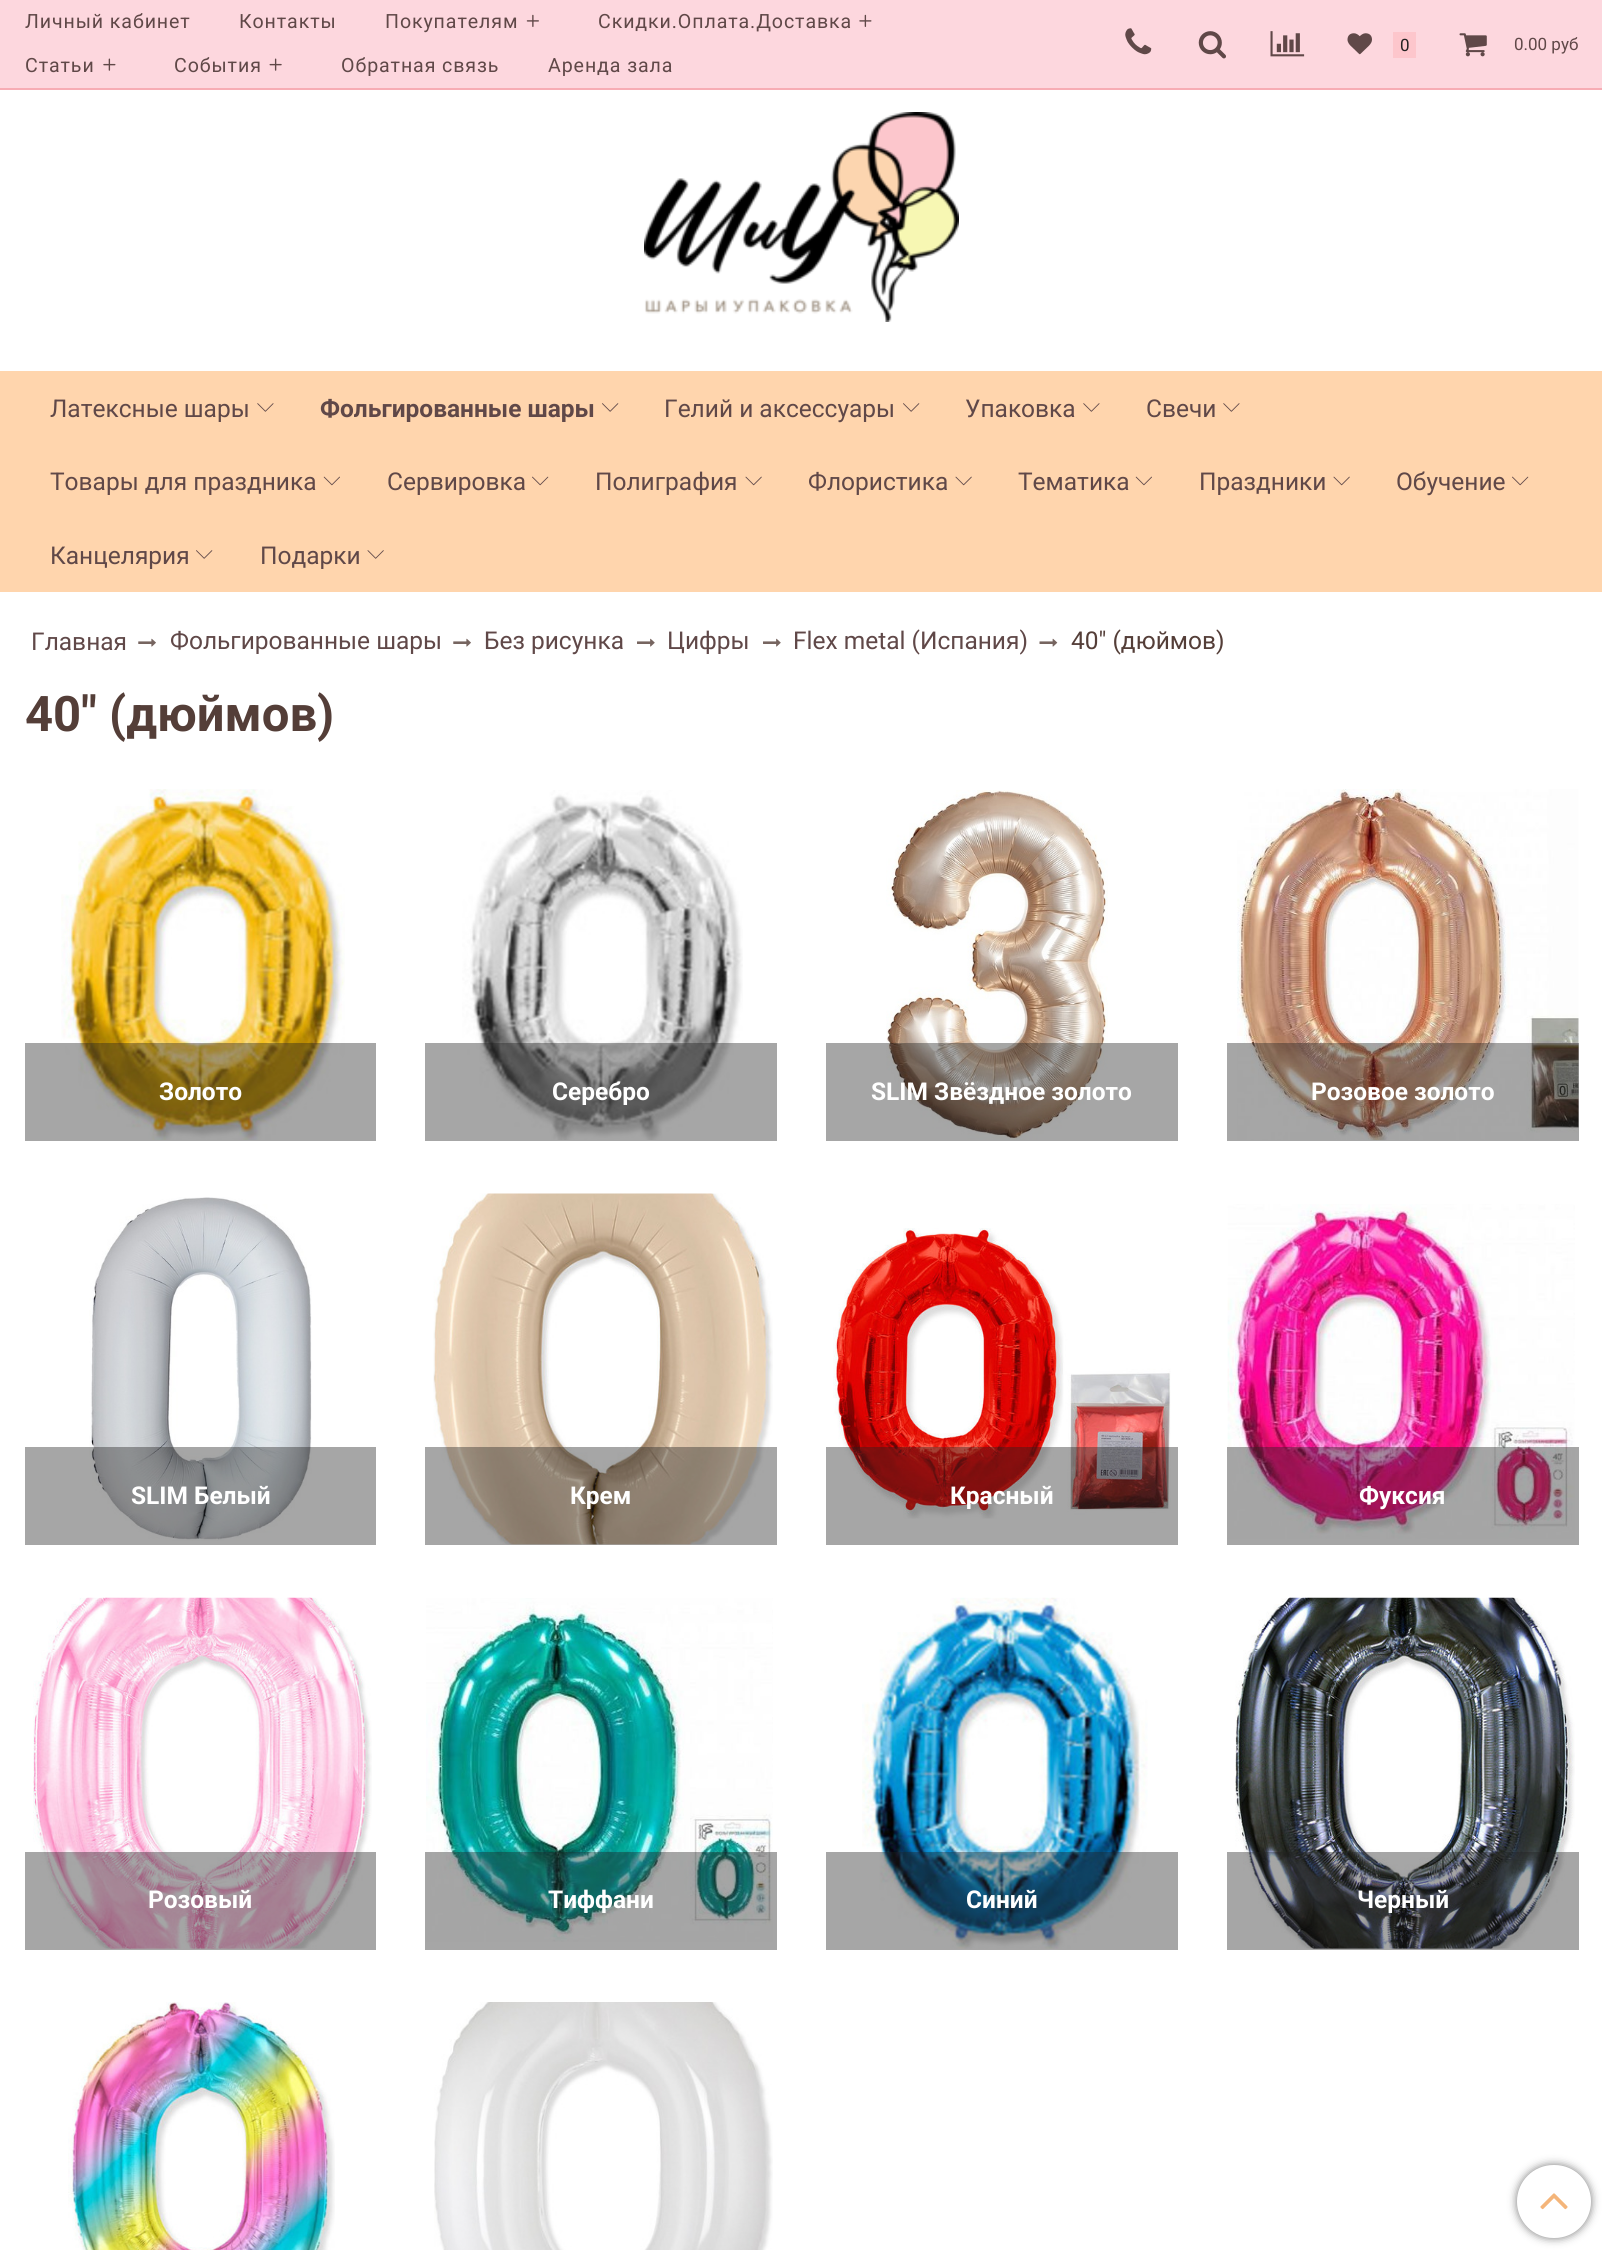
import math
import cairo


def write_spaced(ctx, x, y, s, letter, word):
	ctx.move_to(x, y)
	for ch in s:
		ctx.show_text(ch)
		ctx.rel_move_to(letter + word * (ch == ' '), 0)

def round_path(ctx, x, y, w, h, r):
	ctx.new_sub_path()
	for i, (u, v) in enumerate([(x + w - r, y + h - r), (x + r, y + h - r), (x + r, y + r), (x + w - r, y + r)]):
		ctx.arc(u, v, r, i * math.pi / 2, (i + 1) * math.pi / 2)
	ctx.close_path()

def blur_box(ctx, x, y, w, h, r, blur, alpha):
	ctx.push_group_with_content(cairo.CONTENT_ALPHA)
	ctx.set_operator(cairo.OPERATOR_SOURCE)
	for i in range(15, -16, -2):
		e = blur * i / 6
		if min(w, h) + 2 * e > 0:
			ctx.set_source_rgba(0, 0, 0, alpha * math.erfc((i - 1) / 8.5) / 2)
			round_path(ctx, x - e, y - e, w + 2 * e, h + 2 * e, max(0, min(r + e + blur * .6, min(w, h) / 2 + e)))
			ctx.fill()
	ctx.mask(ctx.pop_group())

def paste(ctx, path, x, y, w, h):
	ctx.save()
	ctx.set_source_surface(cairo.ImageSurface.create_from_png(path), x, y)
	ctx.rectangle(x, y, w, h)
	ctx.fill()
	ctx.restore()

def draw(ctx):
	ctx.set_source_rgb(1, 1, 1)
	ctx.paint()
	ctx.set_source_rgb(0.992, 0.843, 0.871)
	ctx.rectangle(0, 0, 1602, 88)
	ctx.fill()
	ctx.set_source_rgb(0.965, 0.675, 0.706)
	ctx.rectangle(0, 88, 1602, 2)
	ctx.fill()
	ctx.select_font_face('Roboto')
	ctx.set_font_size(19.6)
	ctx.set_source_rgb(0.376, 0.282, 0.282)
	for x, y, s in [
		(25, 28, 'Личный кабинет'),
		(239, 28, 'Контакты'),
		(385, 28, 'Покупателям'),
	]:
		write_spaced(ctx, x, y, s, 0.9, 0)
	paste(ctx, 'media/1.png', 526, 14, 13, 13)
	write_spaced(ctx, 598, 28, 'Скидки.Оплата.Доставка', 0.9, 0)
	paste(ctx, 'media/2.png', 859, 14, 13, 13)
	write_spaced(ctx, 25, 72, 'Статьи', 0.9, 0)
	paste(ctx, 'media/3.png', 103, 58, 13, 13)
	write_spaced(ctx, 174, 72, 'События', 0.9, 0)
	paste(ctx, 'media/4.png', 269, 58, 13, 13)
	write_spaced(ctx, 341, 72, 'Обратная связь', 0.9, 0)
	write_spaced(ctx, 548, 72, 'Аренда зала', 0.9, 0)
	paste(ctx, 'media/5.png', 1125, 28, 27, 27)
	paste(ctx, 'media/6.png', 1198, 31, 28, 28)
	paste(ctx, 'media/7.png', 1270, 31, 35, 26)
	paste(ctx, 'media/8.png', 1347, 33, 25, 22)
	ctx.set_source_rgb(0.992, 0.776, 0.8)
	ctx.rectangle(1393, 32, 23, 26)
	ctx.fill()
	ctx.set_font_size(17)
	ctx.set_source_rgb(0.133, 0.133, 0.133)
	ctx.move_to(1400, 51)
	ctx.show_text('0')
	paste(ctx, 'media/9.png', 1459, 33, 28, 24)
	ctx.set_source_rgb(0.376, 0.282, 0.282)
	ctx.move_to(1514, 50)
	ctx.show_text('0.00 руб')
	paste(ctx, 'media/10.png', 644, 112, 315, 210)
	ctx.set_source_rgb(1, 0.835, 0.678)
	ctx.rectangle(0, 371, 1602, 221)
	ctx.fill()
	ctx.set_font_size(24.5)
	ctx.set_source_rgb(0.376, 0.282, 0.282)
	ctx.move_to(50, 417)
	ctx.show_text('Латексные шары')
	paste(ctx, 'media/11.png', 257, 403, 17, 9)
	ctx.select_font_face('Roboto', cairo.FONT_SLANT_NORMAL, cairo.FONT_WEIGHT_BOLD)
	ctx.move_to(320, 417)
	ctx.show_text('Фольгированные шары')
	paste(ctx, 'media/12.png', 602, 403, 17, 9)
	ctx.select_font_face('Roboto')
	ctx.move_to(664, 417)
	ctx.show_text('Гелий и аксессуары')
	paste(ctx, 'media/12.png', 903, 403, 17, 9)
	ctx.move_to(965, 417)
	ctx.show_text('Упаковка')
	paste(ctx, 'media/11.png', 1083, 403, 17, 9)
	ctx.move_to(1146, 417)
	ctx.show_text('Свечи')
	paste(ctx, 'media/11.png', 1223, 403, 17, 9)
	ctx.move_to(50, 490)
	ctx.show_text('Товары для праздника')
	paste(ctx, 'media/13.png', 323, 476, 17, 10)
	ctx.move_to(387, 490)
	ctx.show_text('Сервировка')
	paste(ctx, 'media/14.png', 532, 476, 17, 10)
	ctx.move_to(595, 490)
	ctx.show_text('Полиграфия')
	paste(ctx, 'media/15.png', 745, 476, 17, 10)
	ctx.move_to(808, 490)
	ctx.show_text('Флористика')
	paste(ctx, 'media/15.png', 955, 476, 17, 10)
	ctx.move_to(1018, 490)
	ctx.show_text('Тематика')
	paste(ctx, 'media/13.png', 1135, 476, 17, 10)
	ctx.move_to(1199, 490)
	ctx.show_text('Праздники')
	paste(ctx, 'media/15.png', 1333, 476, 17, 10)
	ctx.move_to(1396, 490)
	ctx.show_text('Обучение')
	paste(ctx, 'media/14.png', 1512, 476, 17, 10)
	ctx.move_to(50, 564)
	ctx.show_text('Канцелярия')
	paste(ctx, 'media/12.png', 196, 550, 17, 9)
	ctx.move_to(260, 564)
	ctx.show_text('Подарки')
	paste(ctx, 'media/16.png', 367, 550, 17, 9)
	ctx.move_to(31, 650)
	ctx.show_text('Главная')
	paste(ctx, 'media/17.png', 138, 638, 18, 9)
	ctx.move_to(170, 649)
	ctx.show_text('Фольгированные шары')
	paste(ctx, 'media/17.png', 453, 638, 18, 9)
	ctx.move_to(484, 649)
	ctx.show_text('Без рисунка')
	paste(ctx, 'media/18.png', 637, 638, 18, 9)
	ctx.move_to(667, 649)
	ctx.show_text('Цифры')
	paste(ctx, 'media/18.png', 763, 638, 18, 9)
	ctx.move_to(793, 649)
	ctx.show_text('Flex metal (Испания)')
	paste(ctx, 'media/19.png', 1039, 638, 19, 9)
	ctx.set_source_rgb(0.329, 0.243, 0.22)
	ctx.move_to(1071, 649)
	ctx.show_text('40" (дюймов)')
	ctx.select_font_face('Roboto', cairo.FONT_SLANT_NORMAL, cairo.FONT_WEIGHT_BOLD)
	ctx.set_font_size(49)
	ctx.move_to(25, 731)
	ctx.show_text('40" (дюймов)')
	paste(ctx, 'media/20.png', 61, 789, 284, 351)
	ctx.set_source_rgba(0.133, 0.133, 0.133, 0.4)
	ctx.rectangle(25, 1043, 351, 98)
	ctx.fill()
	ctx.set_font_size(24.5)
	ctx.set_source_rgb(1, 1, 1)
	ctx.move_to(159, 1100)
	ctx.show_text('Золото')
	paste(ctx, 'media/21.png', 462, 790, 281, 350)
	ctx.set_source_rgba(0.133, 0.133, 0.133, 0.4)
	ctx.rectangle(425, 1043, 352, 98)
	ctx.fill()
	ctx.set_source_rgb(1, 1, 1)
	ctx.move_to(552, 1100)
	ctx.show_text('Серебро')
	paste(ctx, 'media/22.png', 886, 790, 222, 350)
	ctx.set_source_rgba(0.133, 0.133, 0.133, 0.4)
	ctx.rectangle(826, 1043, 352, 98)
	ctx.fill()
	ctx.set_source_rgb(1, 1, 1)
	ctx.move_to(871, 1100)
	ctx.show_text('SLIM Звёздное золото')
	paste(ctx, 'media/23.png', 1237, 789, 342, 352)
	ctx.set_source_rgba(0.133, 0.133, 0.133, 0.4)
	ctx.rectangle(1227, 1043, 352, 98)
	ctx.fill()
	ctx.set_source_rgb(1, 1, 1)
	ctx.move_to(1311, 1100)
	ctx.show_text('Розовое золото')
	paste(ctx, 'media/24.png', 89, 1197, 223, 344)
	ctx.set_source_rgba(0.133, 0.133, 0.133, 0.4)
	ctx.rectangle(25, 1447, 351, 98)
	ctx.fill()
	ctx.set_source_rgb(1, 1, 1)
	ctx.move_to(131, 1504)
	ctx.show_text('SLIM Белый')
	paste(ctx, 'media/25.png', 433, 1193, 340, 352)
	ctx.set_source_rgba(0.133, 0.133, 0.133, 0.4)
	ctx.rectangle(425, 1447, 352, 98)
	ctx.fill()
	ctx.set_source_rgb(1, 1, 1)
	ctx.move_to(570, 1504)
	ctx.show_text('Крем')
	paste(ctx, 'media/26.png', 833, 1228, 338, 291)
	ctx.set_source_rgba(0.133, 0.133, 0.133, 0.4)
	ctx.rectangle(826, 1447, 352, 98)
	ctx.fill()
	ctx.set_source_rgb(1, 1, 1)
	ctx.move_to(950, 1504)
	ctx.show_text('Красный')
	paste(ctx, 'media/27.png', 1227, 1204, 348, 335)
	ctx.set_source_rgba(0.133, 0.133, 0.133, 0.4)
	ctx.rectangle(1227, 1447, 352, 98)
	ctx.fill()
	ctx.set_source_rgb(1, 1, 1)
	ctx.move_to(1359, 1504)
	ctx.show_text('Фуксия')
	paste(ctx, 'media/28.png', 33, 1597, 339, 352)
	ctx.set_source_rgba(0.133, 0.133, 0.133, 0.4)
	ctx.rectangle(25, 1852, 351, 98)
	ctx.fill()
	ctx.set_source_rgb(1, 1, 1)
	ctx.move_to(148, 1908)
	ctx.show_text('Розовый')
	paste(ctx, 'media/29.png', 426, 1598, 347, 344)
	ctx.set_source_rgba(0.133, 0.133, 0.133, 0.4)
	ctx.rectangle(425, 1852, 352, 98)
	ctx.fill()
	ctx.set_source_rgb(1, 1, 1)
	ctx.move_to(548, 1908)
	ctx.show_text('Тиффани')
	paste(ctx, 'media/30.png', 862, 1597, 286, 352)
	ctx.set_source_rgba(0.133, 0.133, 0.133, 0.4)
	ctx.rectangle(826, 1852, 352, 98)
	ctx.fill()
	ctx.set_source_rgb(1, 1, 1)
	ctx.move_to(966, 1908)
	ctx.show_text('Синий')
	paste(ctx, 'media/31.png', 1235, 1597, 340, 352)
	ctx.set_source_rgba(0.133, 0.133, 0.133, 0.4)
	ctx.rectangle(1227, 1852, 352, 98)
	ctx.fill()
	ctx.set_source_rgb(1, 1, 1)
	ctx.move_to(1357, 1908)
	ctx.show_text('Черный')
	paste(ctx, 'media/32.png', 68, 2002, 267, 248)
	paste(ctx, 'media/33.png', 434, 2002, 339, 248)
	ctx.set_source_rgb(0.467, 0.467, 0.467)
	blur_box(ctx, 1517, 2165, 74, 73, 36.5, 4.5, 1)
	ctx.set_source_rgb(1, 1, 1)
	round_path(ctx, 1517, 2165, 74, 73, 36.5)
	ctx.fill()
	paste(ctx, 'media/34.png', 1540, 2193, 28, 17)


surface = cairo.ImageSurface(cairo.FORMAT_RGB24, 1602, 2250)
ctx = cairo.Context(surface)
options = cairo.FontOptions()
options.set_hint_metrics(cairo.HINT_METRICS_OFF)
options.set_hint_style(cairo.HINT_STYLE_NONE)
ctx.set_font_options(options)
ctx.set_miter_limit(4)
draw(ctx)
surface.write_to_png('image.png')
